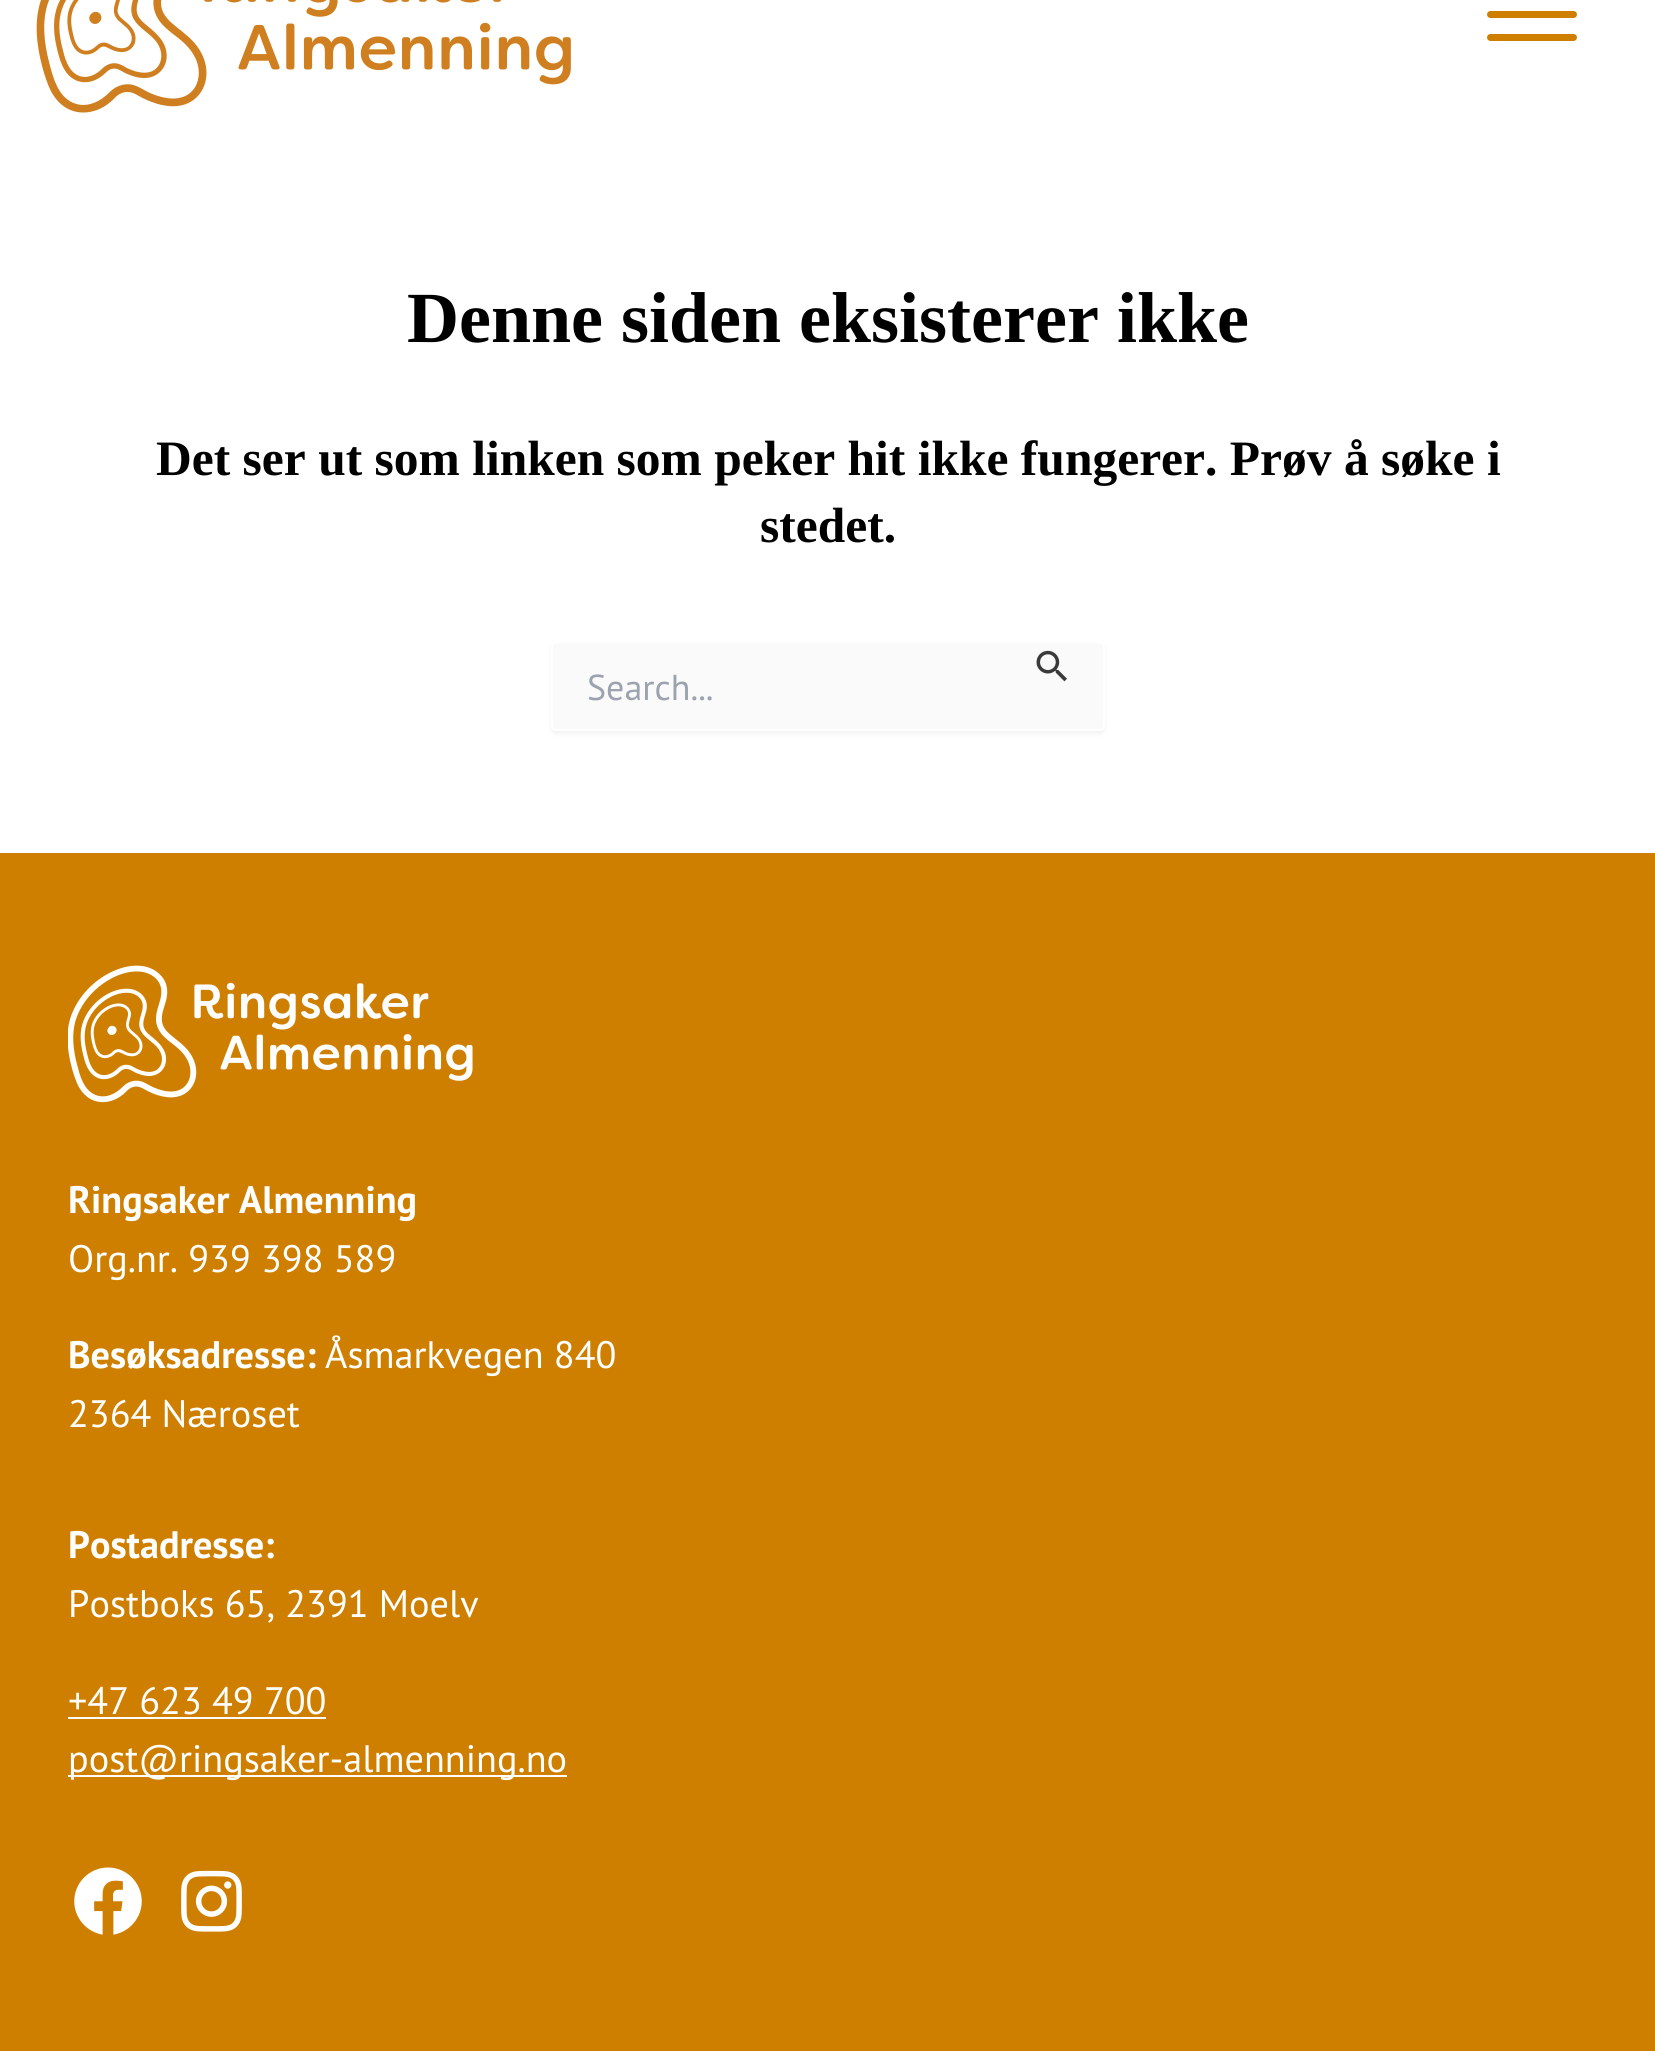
import math
import cairo


def round_path(ctx, x, y, w, h, r):
	ctx.new_sub_path()
	for i, (u, v) in enumerate([(x + w - r, y + h - r), (x + r, y + h - r), (x + r, y + r), (x + w - r, y + r)]):
		ctx.arc(u, v, r, i * math.pi / 2, (i + 1) * math.pi / 2)
	ctx.close_path()

def blur_box(ctx, x, y, w, h, r, blur, alpha):
	ctx.push_group_with_content(cairo.CONTENT_ALPHA)
	ctx.set_operator(cairo.OPERATOR_SOURCE)
	for i in range(15, -16, -2):
		e = blur * i / 6
		if min(w, h) + 2 * e > 0:
			ctx.set_source_rgba(0, 0, 0, alpha * math.erfc((i - 1) / 8.5) / 2)
			round_path(ctx, x - e, y - e, w + 2 * e, h + 2 * e, max(0, min(r + e + blur * .6, min(w, h) / 2 + e)))
			ctx.fill()
	ctx.mask(ctx.pop_group())

def paste(ctx, path, x, y, w, h):
	ctx.save()
	ctx.set_source_surface(cairo.ImageSurface.create_from_png(path), x, y)
	ctx.rectangle(x, y, w, h)
	ctx.fill()
	ctx.restore()

def draw(ctx):
	ctx.set_source_rgb(1, 1, 1)
	ctx.paint()
	paste(ctx, 'media/1.png', 36, 0, 535, 113)
	ctx.set_source_rgb(0.812, 0.498, 0)
	round_path(ctx, 1487, 11, 90, 7, 3.5)
	ctx.fill()
	round_path(ctx, 1487, 34, 90, 7, 3.5)
	ctx.fill()
	ctx.select_font_face('Liberation Serif', cairo.FONT_SLANT_NORMAL, cairo.FONT_WEIGHT_BOLD)
	ctx.set_font_size(72)
	ctx.set_source_rgb(0, 0, 0)
	ctx.move_to(407, 342)
	ctx.show_text('Denne siden eksisterer ikke')
	ctx.set_font_size(49.5)
	ctx.move_to(156, 475)
	ctx.show_text('Det ser ut som linken som peker hit ikke fungerer. Prøv å søke i')
	ctx.move_to(760, 542)
	ctx.show_text('stedet.')
	ctx.set_source_rgb(0, 0, 0)
	blur_box(ctx, 551, 644, 554, 90, 5, 2, 0.05)
	ctx.set_source_rgb(0.98, 0.98, 0.98)
	round_path(ctx, 552, 642, 552, 88, 4)
	ctx.fill_preserve()
	ctx.set_source_rgb(1, 1, 1)
	ctx.stroke()
	paste(ctx, 'media/2.png', 1036, 650, 31, 32)
	ctx.select_font_face('PT Sans')
	ctx.set_font_size(36)
	ctx.set_source_rgb(0.612, 0.639, 0.686)
	ctx.move_to(587, 700)
	ctx.show_text('Search...')
	ctx.set_source_rgb(0.812, 0.498, 0)
	ctx.rectangle(0, 853, 1655, 1198)
	ctx.fill()
	paste(ctx, 'media/3.png', 68, 965, 405, 138)
	ctx.select_font_face('PT Sans', cairo.FONT_SLANT_NORMAL, cairo.FONT_WEIGHT_BOLD)
	ctx.set_font_size(38.25)
	ctx.set_source_rgb(1, 1, 1)
	ctx.move_to(68, 1213)
	ctx.show_text('Ringsaker Almenning')
	ctx.select_font_face('PT Sans')
	ctx.move_to(68, 1272)
	ctx.show_text('Org.nr. 939 398 589')
	ctx.select_font_face('PT Sans', cairo.FONT_SLANT_NORMAL, cairo.FONT_WEIGHT_BOLD)
	ctx.move_to(68, 1368)
	ctx.show_text('Besøksadresse:')
	ctx.select_font_face('PT Sans')
	ctx.move_to(325, 1368)
	ctx.show_text('Åsmarkvegen 840')
	ctx.move_to(68, 1427)
	ctx.show_text('2364 Næroset')
	ctx.select_font_face('PT Sans', cairo.FONT_SLANT_NORMAL, cairo.FONT_WEIGHT_BOLD)
	ctx.move_to(68, 1558)
	ctx.show_text('Postadresse:')
	ctx.select_font_face('PT Sans')
	ctx.move_to(68, 1617)
	ctx.show_text('Postboks 65, 2391 Moelv')
	ctx.move_to(68, 1714)
	ctx.show_text('+47 623 49 700')
	ctx.rectangle(68, 1717, 258, 2)
	ctx.fill()
	ctx.rectangle(68, 1775, 499, 2)
	ctx.fill()
	ctx.move_to(68, 1772)
	ctx.show_text('post@ringsaker-almenning.no')
	paste(ctx, 'media/4.png', 74, 1867, 68, 68)
	paste(ctx, 'media/5.png', 181, 1870, 61, 62)


surface = cairo.ImageSurface(cairo.FORMAT_RGB24, 1655, 2051)
ctx = cairo.Context(surface)
options = cairo.FontOptions()
options.set_hint_metrics(cairo.HINT_METRICS_OFF)
options.set_hint_style(cairo.HINT_STYLE_NONE)
ctx.set_font_options(options)
ctx.set_miter_limit(4)
draw(ctx)
surface.write_to_png('image.png')
